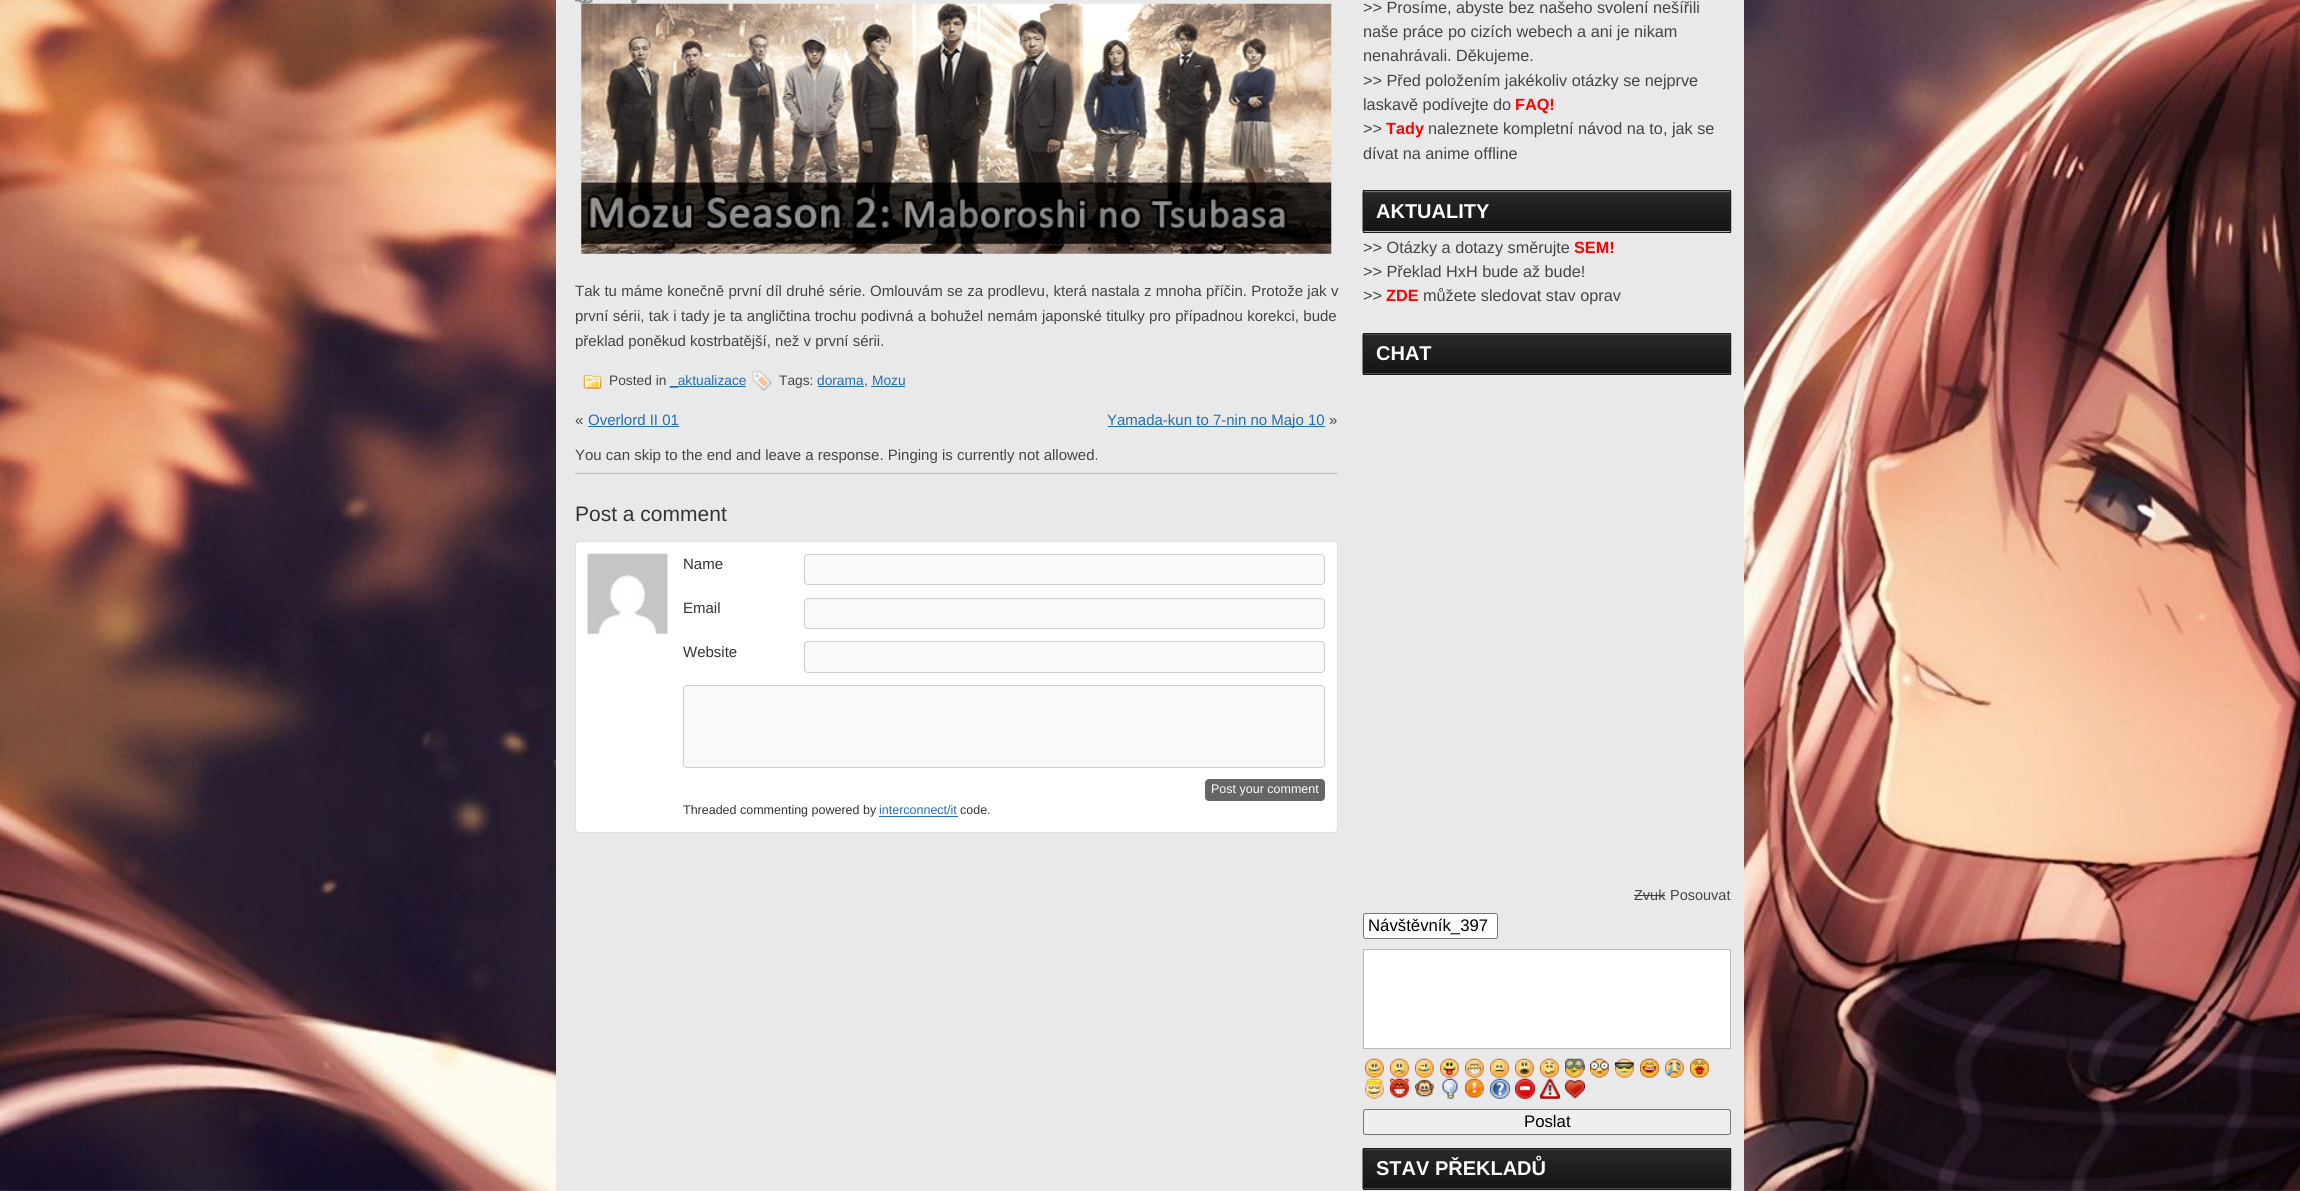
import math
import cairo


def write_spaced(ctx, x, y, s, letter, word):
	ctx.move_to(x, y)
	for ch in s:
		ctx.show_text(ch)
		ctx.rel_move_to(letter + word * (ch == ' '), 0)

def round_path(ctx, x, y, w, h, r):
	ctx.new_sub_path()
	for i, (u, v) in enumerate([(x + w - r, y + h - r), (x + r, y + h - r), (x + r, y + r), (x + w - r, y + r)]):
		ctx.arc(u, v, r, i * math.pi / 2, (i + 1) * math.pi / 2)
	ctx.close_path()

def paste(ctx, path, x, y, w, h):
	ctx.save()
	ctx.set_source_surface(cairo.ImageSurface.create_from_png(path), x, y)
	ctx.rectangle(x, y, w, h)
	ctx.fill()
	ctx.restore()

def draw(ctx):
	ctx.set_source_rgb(1, 1, 1)
	ctx.paint()
	paste(ctx, 'media/1.png', 0, 0, 2300, 1191)
	ctx.set_source_rgb(0.914, 0.914, 0.914)
	ctx.rectangle(556, 0, 1188, 1191)
	ctx.fill()
	ctx.set_source_rgb(0.749, 0.749, 0.749)
	ctx.rectangle(575, 473, 763, 1)
	ctx.fill()
	paste(ctx, 'media/2.png', 575, 0, 19, 4)
	paste(ctx, 'media/3.png', 630, 0, 8, 4)
	paste(ctx, 'media/4.png', 581, 3, 751, 251)
	ctx.select_font_face('Liberation Sans')
	ctx.set_font_size(15)
	ctx.set_source_rgb(0.267, 0.267, 0.267)
	write_spaced(ctx, 575, 296, 'Tak tu máme konečně první díl druhé série. Omlouvám se za prodlevu, která nastala z mnoha příčin. Protože jak v', 0, 0.2)
	write_spaced(ctx, 575, 321, 'první sérii, tak i tady je ta angličtina trochu podivná a bohužel nemám japonské titulky pro případnou korekci, bude', 0, 0.25)
	ctx.move_to(575, 346)
	ctx.show_text('překlad poněkud kostrbatější, než v první sérii.')
	paste(ctx, 'media/5.png', 583, 374, 19, 15)
	ctx.set_font_size(13.75)
	ctx.move_to(609, 385)
	ctx.show_text('Posted in')
	ctx.set_source_rgb(0.137, 0.427, 0.702)
	ctx.rectangle(670, 386, 76, 1)
	ctx.fill()
	ctx.move_to(670, 385)
	ctx.show_text('_aktualizace')
	paste(ctx, 'media/6.png', 752, 371, 20, 20)
	ctx.set_source_rgb(0.267, 0.267, 0.267)
	ctx.move_to(779, 385)
	ctx.show_text('Tags:')
	ctx.set_source_rgb(0.137, 0.427, 0.702)
	ctx.move_to(817, 385)
	ctx.show_text('dorama')
	ctx.rectangle(818, 386, 46, 1)
	ctx.fill()
	ctx.set_source_rgb(0.267, 0.267, 0.267)
	ctx.move_to(864, 385)
	ctx.show_text(',')
	ctx.set_source_rgb(0.137, 0.427, 0.702)
	ctx.move_to(872, 385)
	ctx.show_text('Mozu')
	ctx.rectangle(871, 386, 34, 1)
	ctx.fill()
	ctx.set_font_size(15)
	ctx.set_source_rgb(0.267, 0.267, 0.267)
	ctx.move_to(575, 425)
	ctx.show_text('«')
	ctx.set_source_rgb(0.137, 0.427, 0.702)
	ctx.move_to(588, 425)
	ctx.show_text('Overlord II 01')
	ctx.rectangle(588, 426, 91, 1)
	ctx.fill()
	ctx.rectangle(1108, 426, 217, 1)
	ctx.fill()
	ctx.move_to(1107, 425)
	ctx.show_text('Yamada-kun to 7-nin no Majo 10')
	ctx.set_source_rgb(0.267, 0.267, 0.267)
	ctx.move_to(1329, 425)
	ctx.show_text('»')
	ctx.move_to(575, 460)
	ctx.show_text('You can skip to the end and leave a response. Pinging is currently not allowed.')
	ctx.set_font_size(21)
	ctx.set_source_rgb(0.2, 0.2, 0.2)
	ctx.move_to(575, 521)
	ctx.show_text('Post a comment')
	ctx.set_source_rgb(1, 1, 1)
	round_path(ctx, 575.5, 541.5, 762, 291, 3.5)
	ctx.fill_preserve()
	ctx.set_source_rgb(0.875, 0.875, 0.875)
	ctx.set_line_width(1)
	ctx.stroke()
	paste(ctx, 'media/7.png', 587, 553, 81, 81)
	ctx.set_font_size(15)
	ctx.set_source_rgb(0.2, 0.2, 0.2)
	ctx.move_to(683, 569)
	ctx.show_text('Name')
	ctx.set_source_rgb(0.973, 0.973, 0.973)
	round_path(ctx, 804.5, 554.5, 520, 30, 3.5)
	ctx.fill_preserve()
	ctx.set_source_rgb(0.8, 0.8, 0.8)
	ctx.stroke()
	ctx.set_source_rgb(0.2, 0.2, 0.2)
	ctx.move_to(683, 613)
	ctx.show_text('Email')
	ctx.set_source_rgb(0.973, 0.973, 0.973)
	round_path(ctx, 804.5, 598.5, 520, 30, 3.5)
	ctx.fill_preserve()
	ctx.set_source_rgb(0.8, 0.8, 0.8)
	ctx.stroke()
	ctx.set_source_rgb(0.2, 0.2, 0.2)
	ctx.move_to(683, 657)
	ctx.show_text('Website')
	ctx.set_source_rgb(0.973, 0.973, 0.973)
	round_path(ctx, 804.5, 641.5, 520, 31, 3.5)
	ctx.fill_preserve()
	ctx.set_source_rgb(0.8, 0.8, 0.8)
	ctx.stroke()
	ctx.set_source_rgb(0.973, 0.973, 0.973)
	round_path(ctx, 683.5, 685.5, 641, 82, 3.5)
	ctx.fill_preserve()
	ctx.set_source_rgb(0.8, 0.8, 0.8)
	ctx.stroke()
	ctx.set_source_rgb(0.4, 0.4, 0.4)
	round_path(ctx, 1205, 779, 120, 22, 4)
	ctx.fill()
	ctx.set_font_size(12.5)
	ctx.set_source_rgb(1, 1, 1)
	ctx.move_to(1211, 793)
	ctx.show_text('Post your comment')
	ctx.set_source_rgb(0.2, 0.2, 0.2)
	ctx.move_to(683, 814)
	ctx.show_text('Threaded commenting powered by')
	ctx.set_source_rgb(0.137, 0.427, 0.702)
	ctx.move_to(879, 814)
	ctx.show_text('interconnect/it')
	ctx.rectangle(879, 816, 79, 1)
	ctx.fill()
	ctx.set_source_rgb(0.2, 0.2, 0.2)
	ctx.move_to(960, 814)
	ctx.show_text('code.')
	ctx.set_font_size(16.25)
	ctx.set_source_rgb(0.267, 0.267, 0.267)
	for x, y, s in [
		(1363, 13, '>> Prosíme, abyste bez našeho svolení nešířili'),
		(1363, 37, 'naše práce po cizích webech a ani je nikam'),
		(1363, 61, 'nenahrávali. Děkujeme.'),
		(1363, 86, '>> Před položením jakékoliv otázky se nejprve'),
		(1363, 110, 'laskavě podívejte do'),
	]:
		ctx.move_to(x, y)
		ctx.show_text(s)
	ctx.select_font_face('Liberation Sans', cairo.FONT_SLANT_NORMAL, cairo.FONT_WEIGHT_BOLD)
	ctx.set_source_rgb(1, 0, 0)
	ctx.move_to(1515, 110)
	ctx.show_text('FAQ!')
	ctx.select_font_face('Liberation Sans')
	ctx.set_source_rgb(0.267, 0.267, 0.267)
	ctx.move_to(1363, 134)
	ctx.show_text('>>')
	ctx.select_font_face('Liberation Sans', cairo.FONT_SLANT_NORMAL, cairo.FONT_WEIGHT_BOLD)
	ctx.set_source_rgb(1, 0, 0)
	ctx.move_to(1386, 134)
	ctx.show_text('Tady')
	ctx.select_font_face('Liberation Sans')
	ctx.set_source_rgb(0.267, 0.267, 0.267)
	ctx.move_to(1428, 134)
	ctx.show_text('naleznete kompletní návod na to, jak se')
	ctx.move_to(1363, 159)
	ctx.show_text('dívat na anime offline')
	paste(ctx, 'media/8.png', 1362, 191, 370, 41)
	ctx.rectangle(1363.5, 190.5, 367, 42)
	ctx.set_source_rgb(0.114, 0.114, 0.114)
	ctx.stroke()
	ctx.select_font_face('Liberation Sans', cairo.FONT_SLANT_NORMAL, cairo.FONT_WEIGHT_BOLD)
	ctx.set_font_size(20)
	ctx.set_source_rgb(1, 1, 1)
	ctx.move_to(1376, 218)
	ctx.show_text('AKTUALITY')
	ctx.select_font_face('Liberation Sans')
	ctx.set_font_size(16.25)
	ctx.set_source_rgb(0.267, 0.267, 0.267)
	ctx.move_to(1363, 253)
	ctx.show_text('>> Otázky a dotazy směrujte')
	ctx.select_font_face('Liberation Sans', cairo.FONT_SLANT_NORMAL, cairo.FONT_WEIGHT_BOLD)
	ctx.set_source_rgb(1, 0, 0)
	ctx.move_to(1574, 253)
	ctx.show_text('SEM!')
	ctx.select_font_face('Liberation Sans')
	ctx.set_source_rgb(0.267, 0.267, 0.267)
	ctx.move_to(1363, 277)
	ctx.show_text('>> Překlad HxH bude až bude!')
	ctx.move_to(1363, 301)
	ctx.show_text('>>')
	ctx.select_font_face('Liberation Sans', cairo.FONT_SLANT_NORMAL, cairo.FONT_WEIGHT_BOLD)
	ctx.set_source_rgb(1, 0, 0)
	ctx.move_to(1386, 301)
	ctx.show_text('ZDE')
	ctx.select_font_face('Liberation Sans')
	ctx.set_source_rgb(0.267, 0.267, 0.267)
	ctx.move_to(1423, 301)
	ctx.show_text('můžete sledovat stav oprav')
	paste(ctx, 'media/9.png', 1362, 333, 370, 41)
	ctx.rectangle(1363.5, 333.5, 367, 41)
	ctx.set_source_rgb(0.114, 0.114, 0.114)
	ctx.stroke()
	ctx.select_font_face('Liberation Sans', cairo.FONT_SLANT_NORMAL, cairo.FONT_WEIGHT_BOLD)
	ctx.set_font_size(20)
	ctx.set_source_rgb(1, 1, 1)
	ctx.move_to(1376, 360)
	ctx.show_text('CHAT')
	ctx.select_font_face('Liberation Sans')
	ctx.set_font_size(14.5)
	ctx.set_source_rgb(0.267, 0.267, 0.267)
	ctx.move_to(1634, 900)
	ctx.show_text('Zvuk')
	ctx.set_source_rgb(0.255, 0.251, 0.251)
	ctx.rectangle(1634, 895, 31, 1)
	ctx.fill()
	ctx.set_source_rgb(0.267, 0.267, 0.267)
	ctx.move_to(1670, 900)
	ctx.show_text('Posouvat')
	ctx.set_source_rgb(1, 1, 1)
	round_path(ctx, 1363.5, 913.5, 134, 25, 2)
	ctx.fill_preserve()
	ctx.set_source_rgb(0.463, 0.463, 0.463)
	ctx.stroke()
	ctx.set_font_size(16.75)
	ctx.set_source_rgb(0, 0, 0)
	ctx.move_to(1368, 931)
	ctx.show_text('Návštěvník_397')
	ctx.set_source_rgb(1, 1, 1)
	ctx.rectangle(1363.5, 949.5, 367, 99)
	ctx.fill_preserve()
	ctx.set_source_rgb(0.733, 0.733, 0.733)
	ctx.stroke()
	paste(ctx, 'media/10.png', 1365, 1058, 19, 20)
	paste(ctx, 'media/11.png', 1390, 1058, 19, 20)
	paste(ctx, 'media/12.png', 1415, 1058, 19, 20)
	paste(ctx, 'media/13.png', 1440, 1058, 19, 20)
	paste(ctx, 'media/14.png', 1465, 1058, 19, 20)
	paste(ctx, 'media/15.png', 1490, 1058, 19, 20)
	paste(ctx, 'media/16.png', 1515, 1058, 19, 20)
	paste(ctx, 'media/17.png', 1540, 1058, 19, 20)
	paste(ctx, 'media/18.png', 1565, 1058, 20, 20)
	paste(ctx, 'media/19.png', 1590, 1058, 19, 20)
	paste(ctx, 'media/20.png', 1615, 1058, 19, 20)
	paste(ctx, 'media/21.png', 1640, 1058, 19, 20)
	paste(ctx, 'media/22.png', 1665, 1058, 19, 20)
	paste(ctx, 'media/23.png', 1690, 1058, 19, 20)
	paste(ctx, 'media/24.png', 1365, 1078, 19, 21)
	paste(ctx, 'media/25.png', 1390, 1078, 19, 20)
	paste(ctx, 'media/26.png', 1415, 1079, 19, 18)
	paste(ctx, 'media/27.png', 1442, 1078, 16, 21)
	paste(ctx, 'media/28.png', 1465, 1078, 19, 20)
	paste(ctx, 'media/29.png', 1490, 1078, 20, 21)
	paste(ctx, 'media/30.png', 1515, 1078, 20, 21)
	paste(ctx, 'media/31.png', 1540, 1078, 20, 21)
	paste(ctx, 'media/32.png', 1565, 1079, 20, 20)
	ctx.set_source_rgb(0.937, 0.937, 0.937)
	round_path(ctx, 1363.5, 1109.5, 367, 25, 2)
	ctx.fill_preserve()
	ctx.set_source_rgb(0.463, 0.463, 0.463)
	ctx.stroke()
	ctx.set_source_rgb(0, 0, 0)
	ctx.move_to(1524, 1127)
	ctx.show_text('Poslat')
	paste(ctx, 'media/33.png', 1362, 1148, 370, 41)
	ctx.rectangle(1363.5, 1148.5, 367, 41)
	ctx.set_source_rgb(0.114, 0.114, 0.114)
	ctx.stroke()
	ctx.select_font_face('Liberation Sans', cairo.FONT_SLANT_NORMAL, cairo.FONT_WEIGHT_BOLD)
	ctx.set_font_size(20)
	ctx.set_source_rgb(1, 1, 1)
	ctx.move_to(1376, 1175)
	ctx.show_text('STAV PŘEKLADŮ')


surface = cairo.ImageSurface(cairo.FORMAT_RGB24, 2300, 1191)
ctx = cairo.Context(surface)
options = cairo.FontOptions()
options.set_hint_metrics(cairo.HINT_METRICS_OFF)
options.set_hint_style(cairo.HINT_STYLE_NONE)
ctx.set_font_options(options)
ctx.set_miter_limit(4)
draw(ctx)
surface.write_to_png('image.png')
